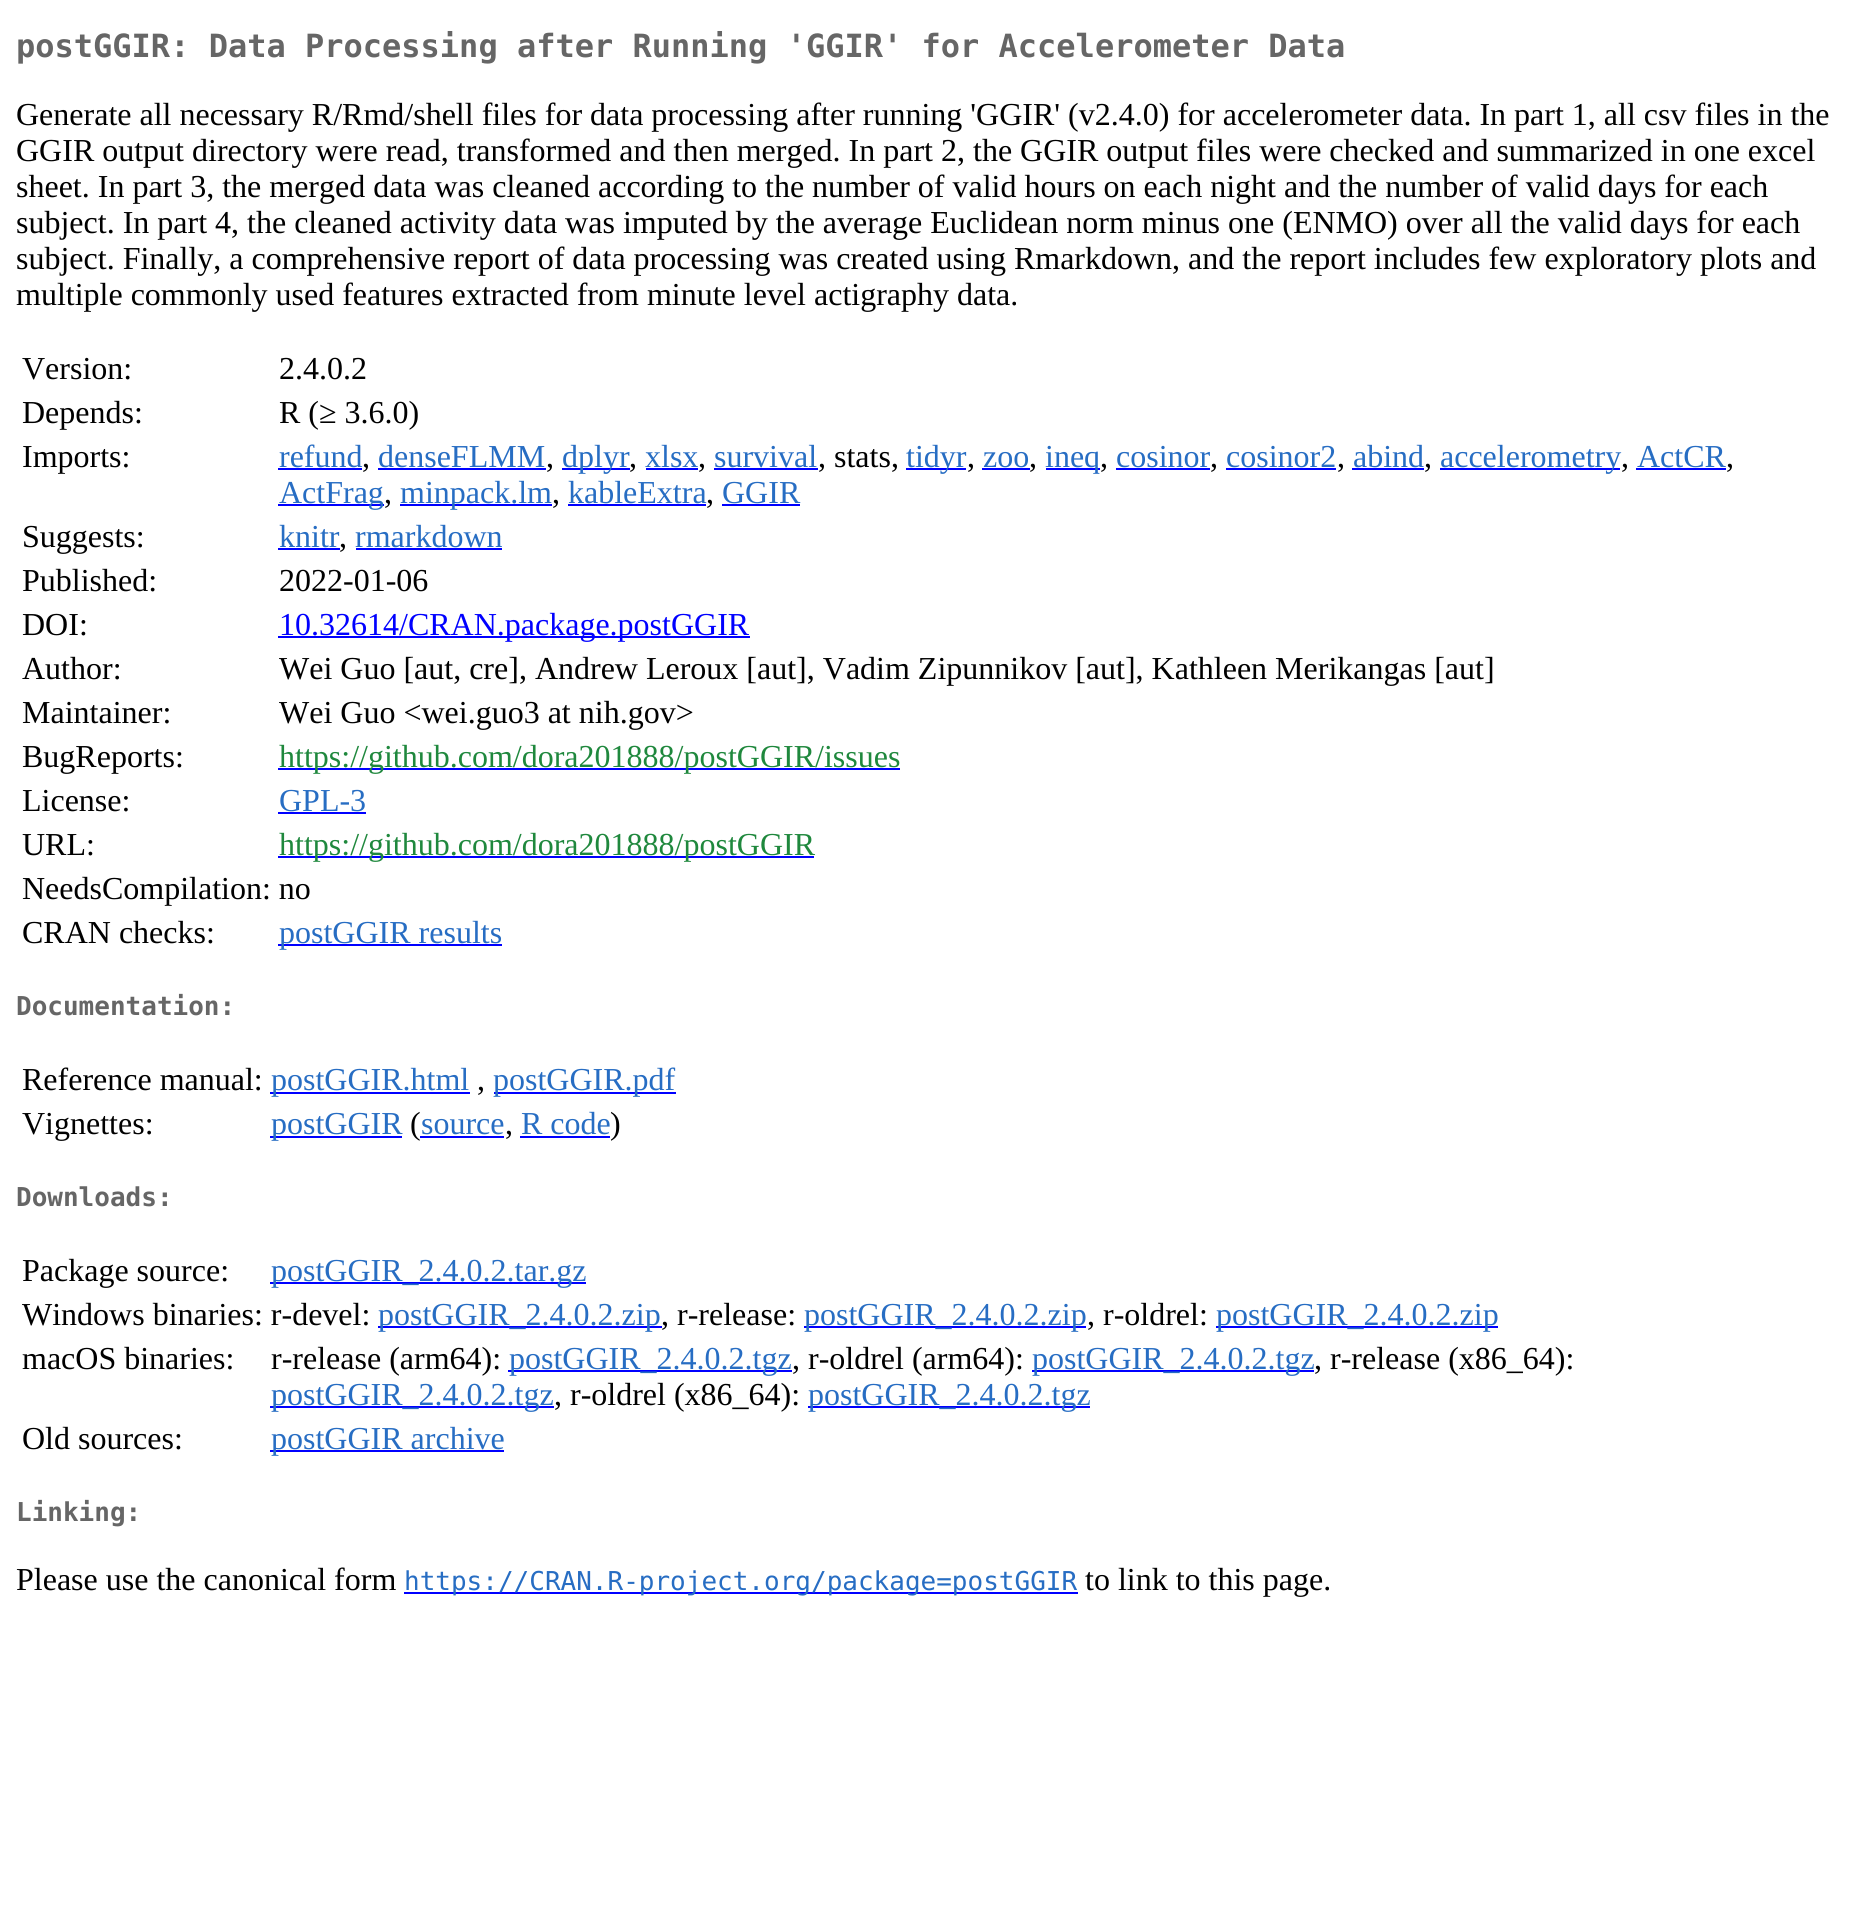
import math
import cairo


def draw(ctx):
	ctx.set_source_rgb(1, 1, 1)
	ctx.paint()
	ctx.select_font_face('DejaVu Sans Mono', cairo.FONT_SLANT_NORMAL, cairo.FONT_WEIGHT_BOLD)
	ctx.set_font_size(32)
	ctx.set_source_rgb(0.4, 0.4, 0.4)
	ctx.move_to(16, 57)
	ctx.show_text('postGGIR: Data Processing after Running \'GGIR\' for Accelerometer Data')
	ctx.select_font_face('Liberation Serif')
	ctx.set_source_rgb(0, 0, 0)
	for x, y, s in [
		(16, 125, 'Generate all necessary R/Rmd/shell files for data processing after running \'GGIR\' (v2.4.0) for accelerometer data. In part 1, all csv files in the'),
		(16, 161, 'GGIR output directory were read, transformed and then merged. In part 2, the GGIR output files were checked and summarized in one excel'),
		(16, 197, 'sheet. In part 3, the merged data was cleaned according to the number of valid hours on each night and the number of valid days for each'),
		(16, 233, 'subject. In part 4, the cleaned activity data was imputed by the average Euclidean norm minus one (ENMO) over all the valid days for each'),
		(16, 269, 'subject. Finally, a comprehensive report of data processing was created using Rmarkdown, and the report includes few exploratory plots and'),
		(16, 305, 'multiple commonly used features extracted from minute level actigraphy data.'),
		(22, 379, 'Version:'),
		(279, 379, '2.4.0.2'),
		(22, 423, 'Depends:'),
		(279, 423, 'R (≥ 3.6.0)'),
		(22, 467, 'Imports:'),
	]:
		ctx.move_to(x, y)
		ctx.show_text(s)
	ctx.set_source_rgb(0.153, 0.427, 0.765)
	ctx.move_to(279, 467)
	ctx.show_text('refund')
	ctx.set_source_rgb(0, 0, 1)
	ctx.rectangle(278, 468, 84, 2)
	ctx.fill()
	ctx.set_source_rgb(0, 0, 0)
	ctx.move_to(362, 467)
	ctx.show_text(',')
	ctx.set_source_rgb(0.153, 0.427, 0.765)
	ctx.move_to(378, 467)
	ctx.show_text('denseFLMM')
	ctx.set_source_rgb(0, 0, 1)
	ctx.rectangle(378, 468, 168, 2)
	ctx.fill()
	ctx.set_source_rgb(0, 0, 0)
	ctx.move_to(546, 467)
	ctx.show_text(',')
	ctx.set_source_rgb(0, 0, 1)
	ctx.rectangle(562, 468, 68, 2)
	ctx.fill()
	ctx.set_source_rgb(0.153, 0.427, 0.765)
	ctx.move_to(562, 467)
	ctx.show_text('dplyr')
	ctx.set_source_rgb(0, 0, 0)
	ctx.move_to(629, 467)
	ctx.show_text(',')
	ctx.set_source_rgb(0.153, 0.427, 0.765)
	ctx.move_to(645, 467)
	ctx.show_text('xlsx')
	ctx.set_source_rgb(0, 0, 1)
	ctx.rectangle(646, 468, 52, 2)
	ctx.fill()
	ctx.set_source_rgb(0, 0, 0)
	ctx.move_to(698, 467)
	ctx.show_text(',')
	ctx.set_source_rgb(0.153, 0.427, 0.765)
	ctx.move_to(714, 467)
	ctx.show_text('survival')
	ctx.set_source_rgb(0, 0, 1)
	ctx.rectangle(714, 468, 104, 2)
	ctx.fill()
	ctx.set_source_rgb(0, 0, 0)
	ctx.move_to(818, 467)
	ctx.show_text(', stats,')
	ctx.set_source_rgb(0, 0, 1)
	ctx.rectangle(906, 468, 60, 2)
	ctx.fill()
	ctx.set_source_rgb(0.153, 0.427, 0.765)
	ctx.move_to(906, 467)
	ctx.show_text('tidyr')
	ctx.set_source_rgb(0, 0, 0)
	ctx.move_to(967, 467)
	ctx.show_text(',')
	ctx.set_source_rgb(0.153, 0.427, 0.765)
	ctx.move_to(983, 467)
	ctx.show_text('zoo')
	ctx.set_source_rgb(0, 0, 1)
	ctx.rectangle(982, 468, 48, 2)
	ctx.fill()
	ctx.set_source_rgb(0, 0, 0)
	ctx.move_to(1029, 467)
	ctx.show_text(',')
	ctx.set_source_rgb(0, 0, 1)
	ctx.rectangle(1046, 468, 54, 2)
	ctx.fill()
	ctx.set_source_rgb(0.153, 0.427, 0.765)
	ctx.move_to(1045, 467)
	ctx.show_text('ineq')
	ctx.set_source_rgb(0, 0, 0)
	ctx.move_to(1100, 467)
	ctx.show_text(',')
	ctx.set_source_rgb(0.153, 0.427, 0.765)
	ctx.move_to(1116, 467)
	ctx.show_text('cosinor')
	ctx.set_source_rgb(0, 0, 1)
	ctx.rectangle(1116, 468, 94, 2)
	ctx.fill()
	ctx.set_source_rgb(0, 0, 0)
	ctx.move_to(1210, 467)
	ctx.show_text(',')
	ctx.set_source_rgb(0.153, 0.427, 0.765)
	ctx.move_to(1226, 467)
	ctx.show_text('cosinor2')
	ctx.set_source_rgb(0, 0, 1)
	ctx.rectangle(1226, 468, 110, 2)
	ctx.fill()
	ctx.set_source_rgb(0, 0, 0)
	ctx.move_to(1337, 467)
	ctx.show_text(',')
	ctx.set_source_rgb(0.153, 0.427, 0.765)
	ctx.move_to(1353, 467)
	ctx.show_text('abind')
	ctx.set_source_rgb(0, 0, 1)
	ctx.rectangle(1352, 468, 72, 2)
	ctx.fill()
	ctx.set_source_rgb(0, 0, 0)
	ctx.move_to(1424, 467)
	ctx.show_text(',')
	ctx.set_source_rgb(0, 0, 1)
	ctx.rectangle(1440, 468, 180, 2)
	ctx.fill()
	ctx.set_source_rgb(0.153, 0.427, 0.765)
	ctx.move_to(1440, 467)
	ctx.show_text('accelerometry')
	ctx.set_source_rgb(0, 0, 0)
	ctx.move_to(1621, 467)
	ctx.show_text(',')
	ctx.set_source_rgb(0.153, 0.427, 0.765)
	ctx.move_to(1637, 467)
	ctx.show_text('ActCR')
	ctx.set_source_rgb(0, 0, 1)
	ctx.rectangle(1636, 468, 90, 2)
	ctx.fill()
	ctx.set_source_rgb(0, 0, 0)
	ctx.move_to(1726, 467)
	ctx.show_text(',')
	ctx.set_source_rgb(0, 0, 1)
	ctx.rectangle(278, 504, 106, 2)
	ctx.fill()
	ctx.set_source_rgb(0.153, 0.427, 0.765)
	ctx.move_to(279, 503)
	ctx.show_text('ActFrag')
	ctx.set_source_rgb(0, 0, 0)
	ctx.move_to(384, 503)
	ctx.show_text(',')
	ctx.set_source_rgb(0, 0, 1)
	ctx.rectangle(400, 504, 152, 2)
	ctx.fill()
	ctx.set_source_rgb(0.153, 0.427, 0.765)
	ctx.move_to(400, 503)
	ctx.show_text('minpack.lm')
	ctx.set_source_rgb(0, 0, 0)
	ctx.move_to(552, 503)
	ctx.show_text(',')
	ctx.set_source_rgb(0.153, 0.427, 0.765)
	ctx.move_to(568, 503)
	ctx.show_text('kableExtra')
	ctx.set_source_rgb(0, 0, 1)
	ctx.rectangle(568, 504, 138, 2)
	ctx.fill()
	ctx.set_source_rgb(0, 0, 0)
	ctx.move_to(706, 503)
	ctx.show_text(',')
	ctx.set_source_rgb(0.153, 0.427, 0.765)
	ctx.move_to(722, 503)
	ctx.show_text('GGIR')
	ctx.set_source_rgb(0, 0, 1)
	ctx.rectangle(722, 504, 78, 2)
	ctx.fill()
	ctx.set_source_rgb(0, 0, 0)
	ctx.move_to(22, 547)
	ctx.show_text('Suggests:')
	ctx.set_source_rgb(0.153, 0.427, 0.765)
	ctx.move_to(279, 547)
	ctx.show_text('knitr')
	ctx.set_source_rgb(0, 0, 1)
	ctx.rectangle(278, 548, 62, 2)
	ctx.fill()
	ctx.set_source_rgb(0, 0, 0)
	ctx.move_to(339, 547)
	ctx.show_text(',')
	ctx.set_source_rgb(0.153, 0.427, 0.765)
	ctx.move_to(355, 547)
	ctx.show_text('rmarkdown')
	ctx.set_source_rgb(0, 0, 1)
	ctx.rectangle(356, 548, 146, 2)
	ctx.fill()
	ctx.set_source_rgb(0, 0, 0)
	for x, y, s in [
		(22, 591, 'Published:'),
		(279, 591, '2022-01-06'),
		(22, 635, 'DOI:'),
	]:
		ctx.move_to(x, y)
		ctx.show_text(s)
	ctx.set_source_rgb(0, 0, 1)
	ctx.rectangle(278, 636, 472, 2)
	ctx.fill()
	ctx.move_to(279, 635)
	ctx.show_text('10.32614/CRAN.package.postGGIR')
	ctx.set_source_rgb(0, 0, 0)
	for x, y, s in [
		(22, 679, 'Author:'),
		(279, 679, 'Wei Guo [aut, cre], Andrew Leroux [aut], Vadim Zipunnikov [aut], Kathleen Merikangas [aut]'),
		(22, 723, 'Maintainer:'),
		(279, 723, 'Wei Guo <wei.guo3 at nih.gov>'),
		(22, 767, 'BugReports:'),
	]:
		ctx.move_to(x, y)
		ctx.show_text(s)
	ctx.set_source_rgb(0, 0, 1)
	ctx.rectangle(278, 768, 622, 2)
	ctx.fill()
	ctx.set_source_rgb(0.122, 0.533, 0.239)
	ctx.move_to(279, 767)
	ctx.show_text('https://github.com/dora201888/postGGIR/issues')
	ctx.set_source_rgb(0, 0, 0)
	ctx.move_to(22, 811)
	ctx.show_text('License:')
	ctx.set_source_rgb(0.153, 0.427, 0.765)
	ctx.move_to(279, 811)
	ctx.show_text('GPL-3')
	ctx.set_source_rgb(0, 0, 1)
	ctx.rectangle(278, 812, 88, 2)
	ctx.fill()
	ctx.set_source_rgb(0, 0, 0)
	ctx.move_to(22, 855)
	ctx.show_text('URL:')
	ctx.set_source_rgb(0, 0, 1)
	ctx.rectangle(278, 856, 536, 2)
	ctx.fill()
	ctx.set_source_rgb(0.122, 0.533, 0.239)
	ctx.move_to(279, 855)
	ctx.show_text('https://github.com/dora201888/postGGIR')
	ctx.set_source_rgb(0, 0, 0)
	ctx.move_to(22, 899)
	ctx.show_text('NeedsCompilation: no')
	ctx.move_to(22, 943)
	ctx.show_text('CRAN checks:')
	ctx.set_source_rgb(0, 0, 1)
	ctx.rectangle(278, 944, 224, 2)
	ctx.fill()
	ctx.set_source_rgb(0.153, 0.427, 0.765)
	ctx.move_to(279, 943)
	ctx.show_text('postGGIR results')
	ctx.select_font_face('DejaVu Sans Mono', cairo.FONT_SLANT_NORMAL, cairo.FONT_WEIGHT_BOLD)
	ctx.set_font_size(26)
	ctx.set_source_rgb(0.4, 0.4, 0.4)
	ctx.move_to(16, 1015)
	ctx.show_text('Documentation:')
	ctx.select_font_face('Liberation Serif')
	ctx.set_font_size(32)
	ctx.set_source_rgb(0, 0, 0)
	ctx.move_to(22, 1090)
	ctx.show_text('Reference manual:')
	ctx.set_source_rgb(0, 0, 1)
	ctx.rectangle(270, 1092, 200, 2)
	ctx.fill()
	ctx.set_source_rgb(0.153, 0.427, 0.765)
	ctx.move_to(271, 1090)
	ctx.show_text('postGGIR.html')
	ctx.set_source_rgb(0, 0, 0)
	ctx.move_to(477, 1090)
	ctx.show_text(',')
	ctx.set_source_rgb(0, 0, 1)
	ctx.rectangle(494, 1092, 182, 2)
	ctx.fill()
	ctx.set_source_rgb(0.153, 0.427, 0.765)
	ctx.move_to(493, 1090)
	ctx.show_text('postGGIR.pdf')
	ctx.set_source_rgb(0, 0, 0)
	ctx.move_to(22, 1134)
	ctx.show_text('Vignettes:')
	ctx.set_source_rgb(0, 0, 1)
	ctx.rectangle(270, 1136, 132, 2)
	ctx.fill()
	ctx.set_source_rgb(0.153, 0.427, 0.765)
	ctx.move_to(271, 1134)
	ctx.show_text('postGGIR')
	ctx.set_source_rgb(0, 0, 0)
	ctx.move_to(410, 1134)
	ctx.show_text('(')
	ctx.set_source_rgb(0.153, 0.427, 0.765)
	ctx.move_to(421, 1134)
	ctx.show_text('source')
	ctx.set_source_rgb(0, 0, 1)
	ctx.rectangle(420, 1136, 84, 2)
	ctx.fill()
	ctx.set_source_rgb(0, 0, 0)
	ctx.move_to(505, 1134)
	ctx.show_text(',')
	ctx.set_source_rgb(0.153, 0.427, 0.765)
	ctx.move_to(521, 1134)
	ctx.show_text('R code')
	ctx.set_source_rgb(0, 0, 1)
	ctx.rectangle(520, 1136, 90, 2)
	ctx.fill()
	ctx.set_source_rgb(0, 0, 0)
	ctx.move_to(610, 1134)
	ctx.show_text(')')
	ctx.select_font_face('DejaVu Sans Mono', cairo.FONT_SLANT_NORMAL, cairo.FONT_WEIGHT_BOLD)
	ctx.set_font_size(26)
	ctx.set_source_rgb(0.4, 0.4, 0.4)
	ctx.move_to(16, 1206)
	ctx.show_text('Downloads:')
	ctx.select_font_face('Liberation Serif')
	ctx.set_font_size(32)
	ctx.set_source_rgb(0, 0, 0)
	ctx.move_to(22, 1281)
	ctx.show_text('Package source:')
	ctx.set_source_rgb(0, 0, 1)
	ctx.rectangle(270, 1282, 316, 2)
	ctx.fill()
	ctx.set_source_rgb(0.153, 0.427, 0.765)
	ctx.move_to(271, 1281)
	ctx.show_text('postGGIR_2.4.0.2.tar.gz')
	ctx.set_source_rgb(0, 0, 0)
	ctx.move_to(22, 1325)
	ctx.show_text('Windows binaries: r-devel:')
	ctx.set_source_rgb(0, 0, 1)
	ctx.rectangle(378, 1326, 284, 2)
	ctx.fill()
	ctx.set_source_rgb(0.153, 0.427, 0.765)
	ctx.move_to(378, 1325)
	ctx.show_text('postGGIR_2.4.0.2.zip')
	ctx.set_source_rgb(0, 0, 0)
	ctx.move_to(661, 1325)
	ctx.show_text(', r-release:')
	ctx.set_source_rgb(0, 0, 1)
	ctx.rectangle(804, 1326, 282, 2)
	ctx.fill()
	ctx.set_source_rgb(0.153, 0.427, 0.765)
	ctx.move_to(804, 1325)
	ctx.show_text('postGGIR_2.4.0.2.zip')
	ctx.set_source_rgb(0, 0, 0)
	ctx.move_to(1087, 1325)
	ctx.show_text(', r-oldrel:')
	ctx.set_source_rgb(0, 0, 1)
	ctx.rectangle(1216, 1326, 282, 2)
	ctx.fill()
	ctx.set_source_rgb(0.153, 0.427, 0.765)
	ctx.move_to(1216, 1325)
	ctx.show_text('postGGIR_2.4.0.2.zip')
	ctx.set_source_rgb(0, 0, 0)
	ctx.move_to(22, 1369)
	ctx.show_text('macOS binaries:')
	ctx.move_to(271, 1369)
	ctx.show_text('r-release (arm64):')
	ctx.set_source_rgb(0, 0, 1)
	ctx.rectangle(508, 1370, 284, 2)
	ctx.fill()
	ctx.set_source_rgb(0.153, 0.427, 0.765)
	ctx.move_to(509, 1369)
	ctx.show_text('postGGIR_2.4.0.2.tgz')
	ctx.set_source_rgb(0, 0, 0)
	ctx.move_to(792, 1369)
	ctx.show_text(', r-oldrel (arm64):')
	ctx.set_source_rgb(0, 0, 1)
	ctx.rectangle(1032, 1370, 282, 2)
	ctx.fill()
	ctx.set_source_rgb(0.153, 0.427, 0.765)
	ctx.move_to(1032, 1369)
	ctx.show_text('postGGIR_2.4.0.2.tgz')
	ctx.set_source_rgb(0, 0, 0)
	ctx.move_to(1314, 1369)
	ctx.show_text(', r-release (x86_64):')
	ctx.set_source_rgb(0, 0, 1)
	ctx.rectangle(270, 1406, 284, 2)
	ctx.fill()
	ctx.set_source_rgb(0.153, 0.427, 0.765)
	ctx.move_to(271, 1405)
	ctx.show_text('postGGIR_2.4.0.2.tgz')
	ctx.set_source_rgb(0, 0, 0)
	ctx.move_to(554, 1405)
	ctx.show_text(', r-oldrel (x86_64):')
	ctx.set_source_rgb(0, 0, 1)
	ctx.rectangle(808, 1406, 282, 2)
	ctx.fill()
	ctx.set_source_rgb(0.153, 0.427, 0.765)
	ctx.move_to(808, 1405)
	ctx.show_text('postGGIR_2.4.0.2.tgz')
	ctx.set_source_rgb(0, 0, 0)
	ctx.move_to(22, 1449)
	ctx.show_text('Old sources:')
	ctx.set_source_rgb(0, 0, 1)
	ctx.rectangle(270, 1450, 234, 2)
	ctx.fill()
	ctx.set_source_rgb(0.153, 0.427, 0.765)
	ctx.move_to(271, 1449)
	ctx.show_text('postGGIR archive')
	ctx.select_font_face('DejaVu Sans Mono', cairo.FONT_SLANT_NORMAL, cairo.FONT_WEIGHT_BOLD)
	ctx.set_font_size(26)
	ctx.set_source_rgb(0.4, 0.4, 0.4)
	ctx.move_to(16, 1521)
	ctx.show_text('Linking:')
	ctx.select_font_face('Liberation Serif')
	ctx.set_font_size(32)
	ctx.set_source_rgb(0, 0, 0)
	ctx.move_to(16, 1590)
	ctx.show_text('Please use the canonical form')
	ctx.set_source_rgb(0, 0, 1)
	ctx.rectangle(404, 1592, 674, 2)
	ctx.fill()
	ctx.select_font_face('DejaVu Sans Mono')
	ctx.set_font_size(26)
	ctx.set_source_rgb(0.153, 0.427, 0.765)
	ctx.move_to(404, 1590)
	ctx.show_text('https://CRAN.R-project.org/package=postGGIR')
	ctx.select_font_face('Liberation Serif')
	ctx.set_font_size(32)
	ctx.set_source_rgb(0, 0, 0)
	ctx.move_to(1085, 1590)
	ctx.show_text('to link to this page.')


surface = cairo.ImageSurface(cairo.FORMAT_RGB24, 1852, 1928)
ctx = cairo.Context(surface)
options = cairo.FontOptions()
options.set_hint_metrics(cairo.HINT_METRICS_OFF)
options.set_hint_style(cairo.HINT_STYLE_NONE)
ctx.set_font_options(options)
ctx.set_miter_limit(4)
draw(ctx)
surface.write_to_png('image.png')
